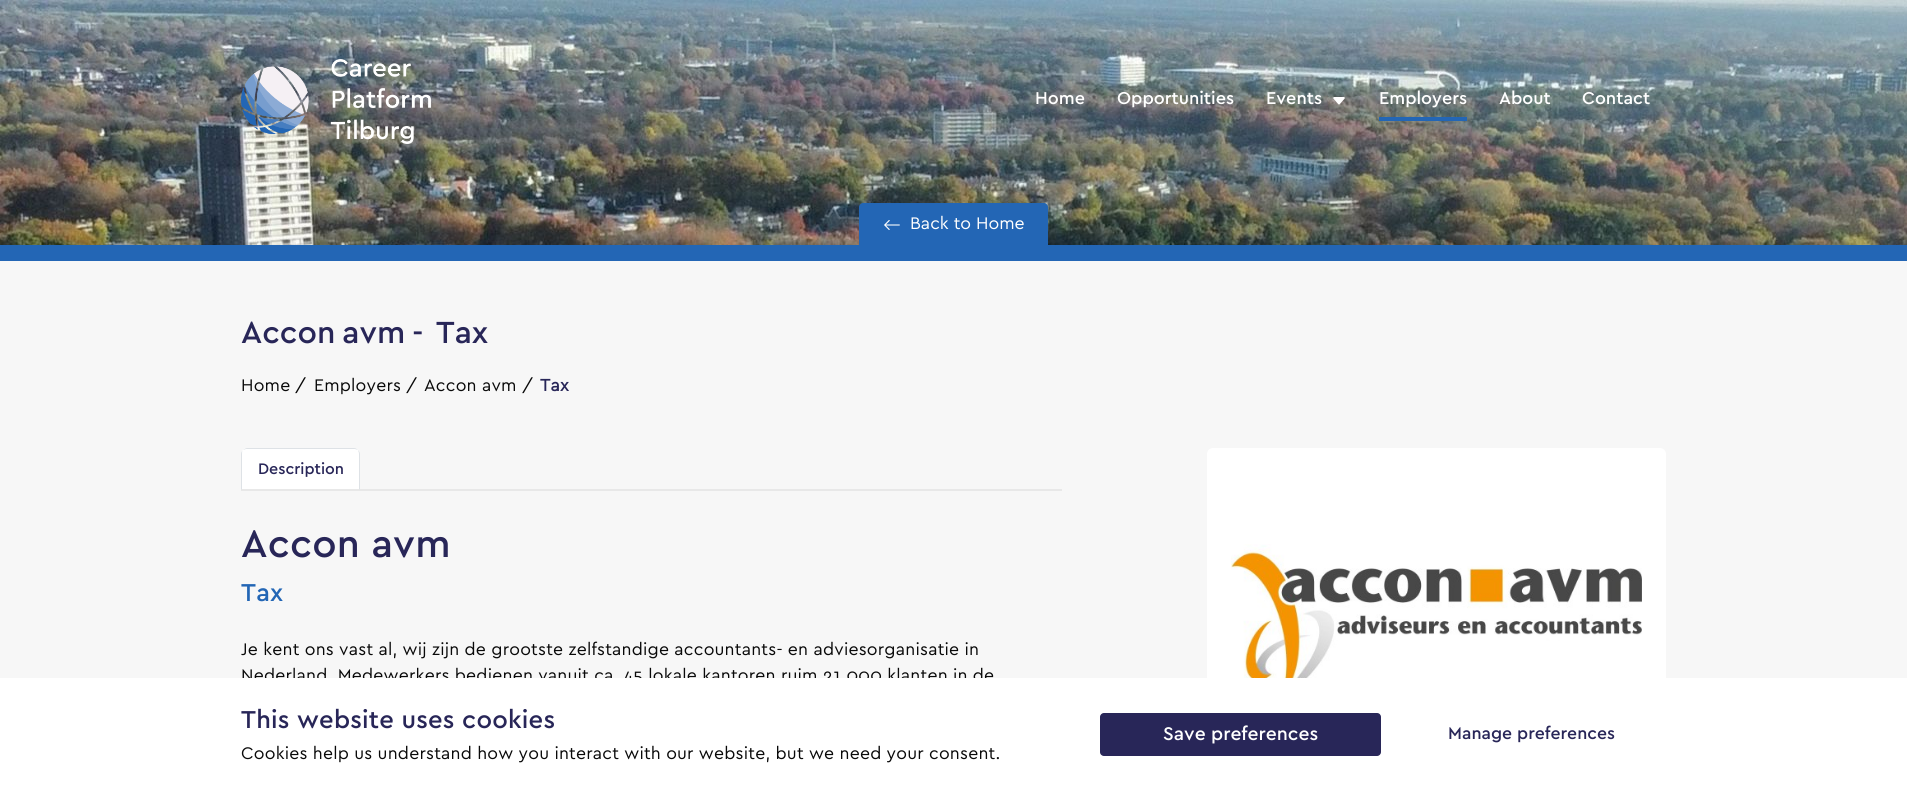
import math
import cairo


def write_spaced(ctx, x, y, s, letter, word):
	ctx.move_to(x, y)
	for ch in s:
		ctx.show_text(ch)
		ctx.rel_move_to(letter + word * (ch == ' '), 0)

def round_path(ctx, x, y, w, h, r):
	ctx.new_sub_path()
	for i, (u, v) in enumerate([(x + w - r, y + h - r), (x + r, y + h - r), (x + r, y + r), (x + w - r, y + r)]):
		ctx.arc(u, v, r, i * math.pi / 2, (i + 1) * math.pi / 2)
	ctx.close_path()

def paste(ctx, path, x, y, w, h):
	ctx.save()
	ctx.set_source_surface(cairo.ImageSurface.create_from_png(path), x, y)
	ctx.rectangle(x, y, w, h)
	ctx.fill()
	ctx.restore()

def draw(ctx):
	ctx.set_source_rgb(1, 1, 1)
	ctx.paint()
	paste(ctx, 'media/1.png', 0, 0, 1907, 245)
	paste(ctx, 'media/2.png', 241, 59, 190, 85)
	ctx.select_font_face('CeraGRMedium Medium')
	ctx.set_font_size(18)
	ctx.set_source_rgb(1, 1, 1)
	for x, y, s in [
		(1035, 104, 'Home'),
		(1117, 104, 'Opportunities'),
		(1266, 104, 'Events'),
	]:
		ctx.move_to(x, y)
		ctx.show_text(s)
	paste(ctx, 'media/3.png', 1333, 97, 12, 8)
	ctx.set_source_rgb(0.137, 0.4, 0.71)
	ctx.rectangle(1379, 117, 88, 4)
	ctx.fill()
	ctx.set_source_rgb(1, 1, 1)
	for x, y, s in [
		(1379, 104, 'Employers'),
		(1499, 104, 'About'),
		(1582, 104, 'Contact'),
	]:
		ctx.move_to(x, y)
		ctx.show_text(s)
	ctx.set_source_rgb(0.137, 0.4, 0.71)
	ctx.rectangle(0, 245, 1907, 16)
	ctx.fill()
	ctx.new_path()
	ctx.move_to(863, 203)
	ctx.line_to(1044, 203)
	ctx.curve_to(1046, 203, 1048, 205, 1048, 207)
	ctx.line_to(1048, 245)
	ctx.line_to(859, 245)
	ctx.line_to(859, 207)
	ctx.curve_to(859, 205, 861, 203, 863, 203)
	ctx.close_path()
	ctx.fill()
	paste(ctx, 'media/4.png', 884, 220, 16, 10)
	ctx.select_font_face('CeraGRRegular')
	ctx.set_font_size(17.6)
	ctx.set_source_rgb(1, 1, 1)
	ctx.move_to(910, 229)
	ctx.show_text('Back to Home')
	ctx.set_source_rgb(0.965, 0.965, 0.965)
	ctx.rectangle(0, 261, 1907, 417)
	ctx.fill()
	ctx.select_font_face('CeraGRMedium Medium')
	ctx.set_font_size(32)
	ctx.set_source_rgb(0.157, 0.149, 0.345)
	write_spaced(ctx, 241, 343, 'Accon avm -', 0, -2)
	write_spaced(ctx, 436, 343, 'Tax', 0, -2)
	ctx.select_font_face('CeraGRRegular')
	ctx.set_font_size(17.6)
	ctx.set_source_rgb(0.039, 0.039, 0.039)
	for x, y, s in [
		(241, 391, 'Home'),
		(295, 391, '/'),
		(314, 391, 'Employers'),
		(406, 391, '/'),
		(424, 391, 'Accon avm'),
		(522, 391, '/'),
	]:
		write_spaced(ctx, x, y, s, 0.2, 0)
	ctx.select_font_face('CeraGRRegular', cairo.FONT_SLANT_NORMAL, cairo.FONT_WEIGHT_BOLD)
	ctx.set_source_rgb(0.157, 0.149, 0.345)
	write_spaced(ctx, 540, 391, 'Tax', 0.2, 0)
	ctx.set_source_rgb(0.91, 0.91, 0.91)
	ctx.rectangle(241, 489, 821, 2)
	ctx.fill()
	ctx.set_source_rgb(1, 1, 1)
	ctx.new_path()
	ctx.move_to(247, 448)
	ctx.line_to(354, 448)
	ctx.curve_to(357.5, 448, 360, 450.5, 360, 454)
	ctx.line_to(360, 489)
	ctx.line_to(241, 489)
	ctx.line_to(241, 454)
	ctx.curve_to(241, 450.5, 243.5, 448, 247, 448)
	ctx.close_path()
	ctx.fill()
	ctx.set_source_rgb(0.871, 0.886, 0.902)
	ctx.new_path()
	ctx.move_to(247, 448)
	ctx.curve_to(246, 448, 244, 449, 243, 450)
	ctx.line_to(246, 449)
	ctx.line_to(355, 449)
	ctx.line_to(358, 450)
	ctx.curve_to(357, 449, 356, 448, 354, 448)
	ctx.close_path()
	ctx.fill()
	ctx.new_path()
	ctx.move_to(360, 490)
	ctx.line_to(360, 454)
	ctx.curve_to(360, 452, 359, 451, 358, 450)
	ctx.curve_to(358, 451, 359, 452, 359, 454)
	ctx.line_to(359, 489)
	ctx.close_path()
	ctx.fill()
	ctx.new_path()
	ctx.move_to(241, 490)
	ctx.line_to(242, 489)
	ctx.line_to(242, 454)
	ctx.curve_to(242, 452, 242, 451, 243, 450)
	ctx.curve_to(242, 451, 241, 452, 241, 454)
	ctx.close_path()
	ctx.fill()
	ctx.select_font_face('CeraGRMedium Medium')
	ctx.set_font_size(16)
	ctx.set_source_rgb(0.157, 0.149, 0.345)
	ctx.move_to(258, 474)
	ctx.show_text('Description')
	ctx.set_font_size(40)
	write_spaced(ctx, 241, 557, 'Accon avm', 0.2, 0)
	ctx.set_font_size(25.6)
	ctx.set_source_rgb(0.137, 0.4, 0.71)
	write_spaced(ctx, 241, 601, 'Tax', 0.2, 0)
	ctx.select_font_face('CeraGRRegular')
	ctx.set_font_size(17.6)
	ctx.set_source_rgb(0.039, 0.039, 0.039)
	write_spaced(ctx, 241, 655, 'Je kent ons vast al, wij zijn de grootste zelfstandige accountants- en adviesorganisatie in', 0.2, 0)
	write_spaced(ctx, 241, 681, 'Nederland. Medewerkers bedienen vanuit ca. 45 lokale kantoren ruim 21.000 klanten in de', 0.2, 0)
	ctx.set_source_rgb(1, 1, 1)
	round_path(ctx, 1207, 448, 459, 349, 6)
	ctx.fill()
	paste(ctx, 'media/5.png', 1231, 544, 411, 134)
	ctx.rectangle(242, 678, 751, 6)
	ctx.fill()
	ctx.select_font_face('CeraGRMedium Medium')
	ctx.set_font_size(25.6)
	ctx.set_source_rgb(0.157, 0.149, 0.345)
	write_spaced(ctx, 241, 728, 'This website uses cookies', 0.2, 0)
	ctx.select_font_face('CeraGRRegular')
	ctx.set_font_size(17.6)
	ctx.set_source_rgb(0.039, 0.039, 0.039)
	write_spaced(ctx, 241, 759, 'Cookies help us understand how you interact with our website, but we need your consent.', 0.2, 0)
	ctx.set_source_rgb(0.157, 0.149, 0.345)
	round_path(ctx, 1100, 713, 281, 43, 4)
	ctx.fill()
	ctx.select_font_face('CeraGRMedium Medium')
	ctx.set_font_size(19.25)
	ctx.set_source_rgb(1, 1, 1)
	ctx.move_to(1163, 740)
	ctx.show_text('Save preferences')
	ctx.set_font_size(17.6)
	ctx.set_source_rgb(0.157, 0.149, 0.345)
	ctx.move_to(1448, 739)
	ctx.show_text('Manage preferences')


surface = cairo.ImageSurface(cairo.FORMAT_RGB24, 1907, 791)
ctx = cairo.Context(surface)
options = cairo.FontOptions()
options.set_hint_metrics(cairo.HINT_METRICS_OFF)
options.set_hint_style(cairo.HINT_STYLE_NONE)
ctx.set_font_options(options)
ctx.set_miter_limit(4)
draw(ctx)
surface.write_to_png('image.png')
